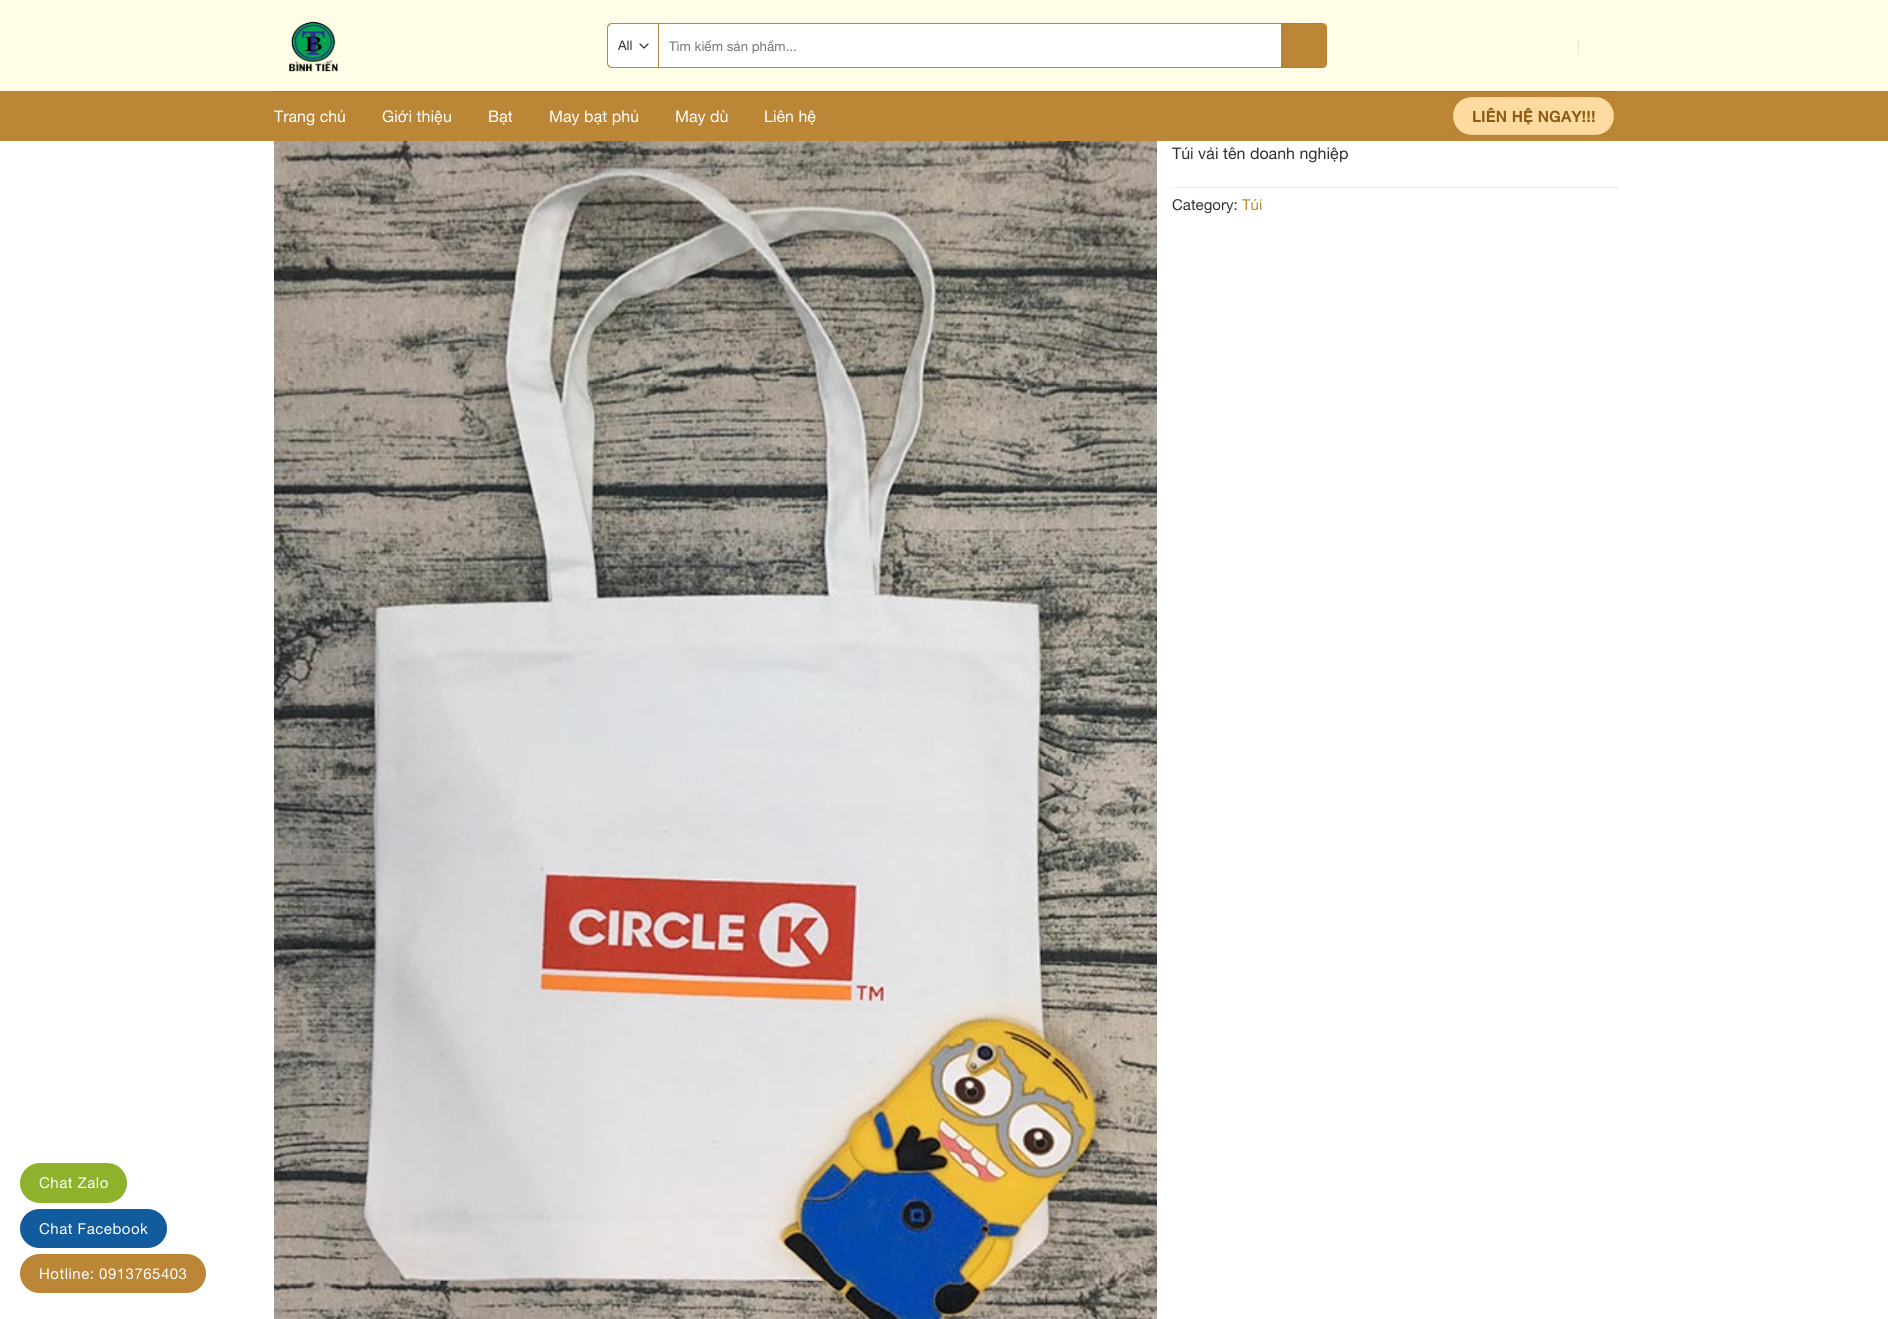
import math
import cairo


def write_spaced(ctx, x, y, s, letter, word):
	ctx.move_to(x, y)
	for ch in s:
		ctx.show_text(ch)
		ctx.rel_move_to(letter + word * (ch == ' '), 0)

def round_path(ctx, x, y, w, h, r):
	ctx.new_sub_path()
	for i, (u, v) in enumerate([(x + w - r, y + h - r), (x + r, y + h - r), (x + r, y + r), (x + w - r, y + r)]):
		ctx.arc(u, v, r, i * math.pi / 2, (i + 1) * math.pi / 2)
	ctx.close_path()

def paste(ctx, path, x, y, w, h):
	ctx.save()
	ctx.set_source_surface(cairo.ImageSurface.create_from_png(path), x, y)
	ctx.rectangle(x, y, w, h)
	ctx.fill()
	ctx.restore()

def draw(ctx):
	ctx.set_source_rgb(1, 1, 1)
	ctx.paint()
	ctx.set_source_rgb(1, 0.992, 0.906)
	ctx.rectangle(0, 0, 1888, 91)
	ctx.fill()
	paste(ctx, 'media/1.png', 289, 21, 49, 51)
	ctx.set_source_rgb(1, 1, 1)
	ctx.new_path()
	ctx.move_to(612, 23)
	ctx.line_to(658, 23)
	ctx.line_to(658, 68)
	ctx.line_to(612, 68)
	ctx.curve_to(609, 68, 607, 66, 607, 63)
	ctx.line_to(607, 28)
	ctx.curve_to(607, 25, 609, 23, 612, 23)
	ctx.close_path()
	ctx.fill()
	ctx.new_path()
	ctx.move_to(640, 44)
	ctx.line_to(644, 48)
	ctx.line_to(648, 44)
	ctx.set_source_rgb(0.2, 0.2, 0.2)
	ctx.set_line_width(1.3)
	ctx.set_line_cap(cairo.LINE_CAP_ROUND)
	ctx.set_line_join(cairo.LINE_JOIN_ROUND)
	ctx.stroke()
	ctx.set_source_rgb(0.733, 0.525, 0.212)
	ctx.set_fill_rule(cairo.FILL_RULE_EVEN_ODD)
	ctx.new_path()
	ctx.move_to(612, 23)
	ctx.line_to(658, 23)
	ctx.line_to(658, 68)
	ctx.line_to(612, 68)
	ctx.curve_to(609, 68, 607, 66, 607, 63)
	ctx.line_to(607, 28)
	ctx.curve_to(607, 25, 609, 23, 612, 23)
	ctx.close_path()
	ctx.move_to(612, 24)
	ctx.line_to(658, 24)
	ctx.line_to(658, 67)
	ctx.line_to(612, 67)
	ctx.curve_to(610, 67, 608, 65, 608, 63)
	ctx.line_to(608, 28)
	ctx.curve_to(608, 26, 610, 24, 612, 24)
	ctx.close_path()
	ctx.fill()
	ctx.select_font_face('Helvetica Neue')
	ctx.set_font_size(13.25)
	ctx.set_source_rgb(0.188, 0.188, 0.188)
	ctx.move_to(618, 50)
	ctx.show_text('All')
	ctx.set_source_rgb(1, 1, 1)
	ctx.rectangle(658.5, 23.5, 623, 44)
	ctx.fill_preserve()
	ctx.set_source_rgb(0.733, 0.525, 0.212)
	ctx.set_line_width(1)
	ctx.set_line_cap(cairo.LINE_CAP_BUTT)
	ctx.set_line_join(cairo.LINE_JOIN_MITER)
	ctx.stroke()
	ctx.set_source_rgb(0.459, 0.459, 0.459)
	ctx.move_to(669, 51)
	ctx.show_text('Tìm kiếm sản phẩm...')
	ctx.set_source_rgb(0.733, 0.525, 0.212)
	ctx.new_path()
	ctx.move_to(1282, 23)
	ctx.line_to(1322, 23)
	ctx.curve_to(1325, 23, 1327, 25, 1327, 28)
	ctx.line_to(1327, 63)
	ctx.curve_to(1327, 66, 1325, 68, 1322, 68)
	ctx.line_to(1282, 68)
	ctx.close_path()
	ctx.fill()
	ctx.rectangle(1282.5, 23.5, 44, 44)
	ctx.set_source_rgba(0, 0, 0, 0.05)
	ctx.stroke()
	ctx.set_source_rgb(0.902, 0.894, 0.816)
	ctx.rectangle(1578, 39, 1, 15)
	ctx.fill()
	ctx.set_source_rgb(0.733, 0.525, 0.212)
	ctx.rectangle(0, 91, 1888, 50)
	ctx.fill()
	ctx.set_source_rgb(0.678, 0.49, 0.208)
	ctx.rectangle(274, 91, 1340, 1)
	ctx.fill()
	ctx.set_font_size(16)
	ctx.set_source_rgb(1, 1, 1)
	for x, y, s in [
		(274, 122, 'Trang chủ'),
		(382, 122, 'Giới thiệu'),
		(488, 122, 'Bạt'),
		(549, 122, 'May bạt phủ'),
		(675, 122, 'May dù'),
		(764, 122, 'Liên hệ'),
	]:
		ctx.move_to(x, y)
		ctx.show_text(s)
	ctx.set_source_rgb(1, 0.855, 0.631)
	round_path(ctx, 1453, 97, 161, 38, 19)
	ctx.fill()
	ctx.rectangle(1453.5, 97.5, 160, 37)
	ctx.set_source_rgba(0, 0, 0, 0.05)
	ctx.stroke()
	ctx.select_font_face('Helvetica Neue', cairo.FONT_SLANT_NORMAL, cairo.FONT_WEIGHT_BOLD)
	ctx.set_font_size(15)
	ctx.set_source_rgb(0.549, 0.361, 0.082)
	write_spaced(ctx, 1472, 122, 'LIÊN HỆ NGAY!!!', 0.5, 0)
	paste(ctx, 'media/2.png', 274, 141, 883, 1178)
	ctx.select_font_face('Helvetica Neue')
	ctx.set_font_size(16)
	ctx.set_source_rgb(0.188, 0.188, 0.188)
	ctx.move_to(1172, 159)
	ctx.show_text('Túi vải tên doanh nghiệp')
	ctx.new_path()
	ctx.move_to(1172, 187.5)
	ctx.line_to(1619, 187.5)
	ctx.set_source_rgb(0.867, 0.867, 0.867)
	ctx.set_dash([1, 1])
	ctx.stroke()
	ctx.set_font_size(15)
	ctx.set_source_rgb(0.188, 0.188, 0.188)
	ctx.move_to(1172, 210)
	ctx.show_text('Category:')
	ctx.set_source_rgb(0.733, 0.525, 0.212)
	ctx.move_to(1242, 210)
	ctx.show_text('Túi')
	ctx.set_source_rgb(0.557, 0.698, 0.169)
	round_path(ctx, 20, 1163, 107, 40, 20)
	ctx.fill()
	ctx.set_source_rgb(1, 1, 1)
	write_spaced(ctx, 39, 1188, 'Chat Zalo', 0.5, 0)
	ctx.set_source_rgb(0.071, 0.361, 0.62)
	round_path(ctx, 20, 1209, 147, 39, 19.5)
	ctx.fill()
	ctx.set_source_rgb(1, 1, 1)
	write_spaced(ctx, 39, 1234, 'Chat Facebook', 0.5, 0)
	ctx.set_source_rgb(0.733, 0.525, 0.212)
	round_path(ctx, 20, 1254, 186, 39, 19.5)
	ctx.fill()
	ctx.set_source_rgb(1, 1, 1)
	write_spaced(ctx, 39, 1279, 'Hotline: 0913765403', 0.5, 0)


surface = cairo.ImageSurface(cairo.FORMAT_RGB24, 1888, 1319)
ctx = cairo.Context(surface)
options = cairo.FontOptions()
options.set_hint_metrics(cairo.HINT_METRICS_OFF)
options.set_hint_style(cairo.HINT_STYLE_NONE)
ctx.set_font_options(options)
ctx.set_miter_limit(4)
draw(ctx)
surface.write_to_png('image.png')
